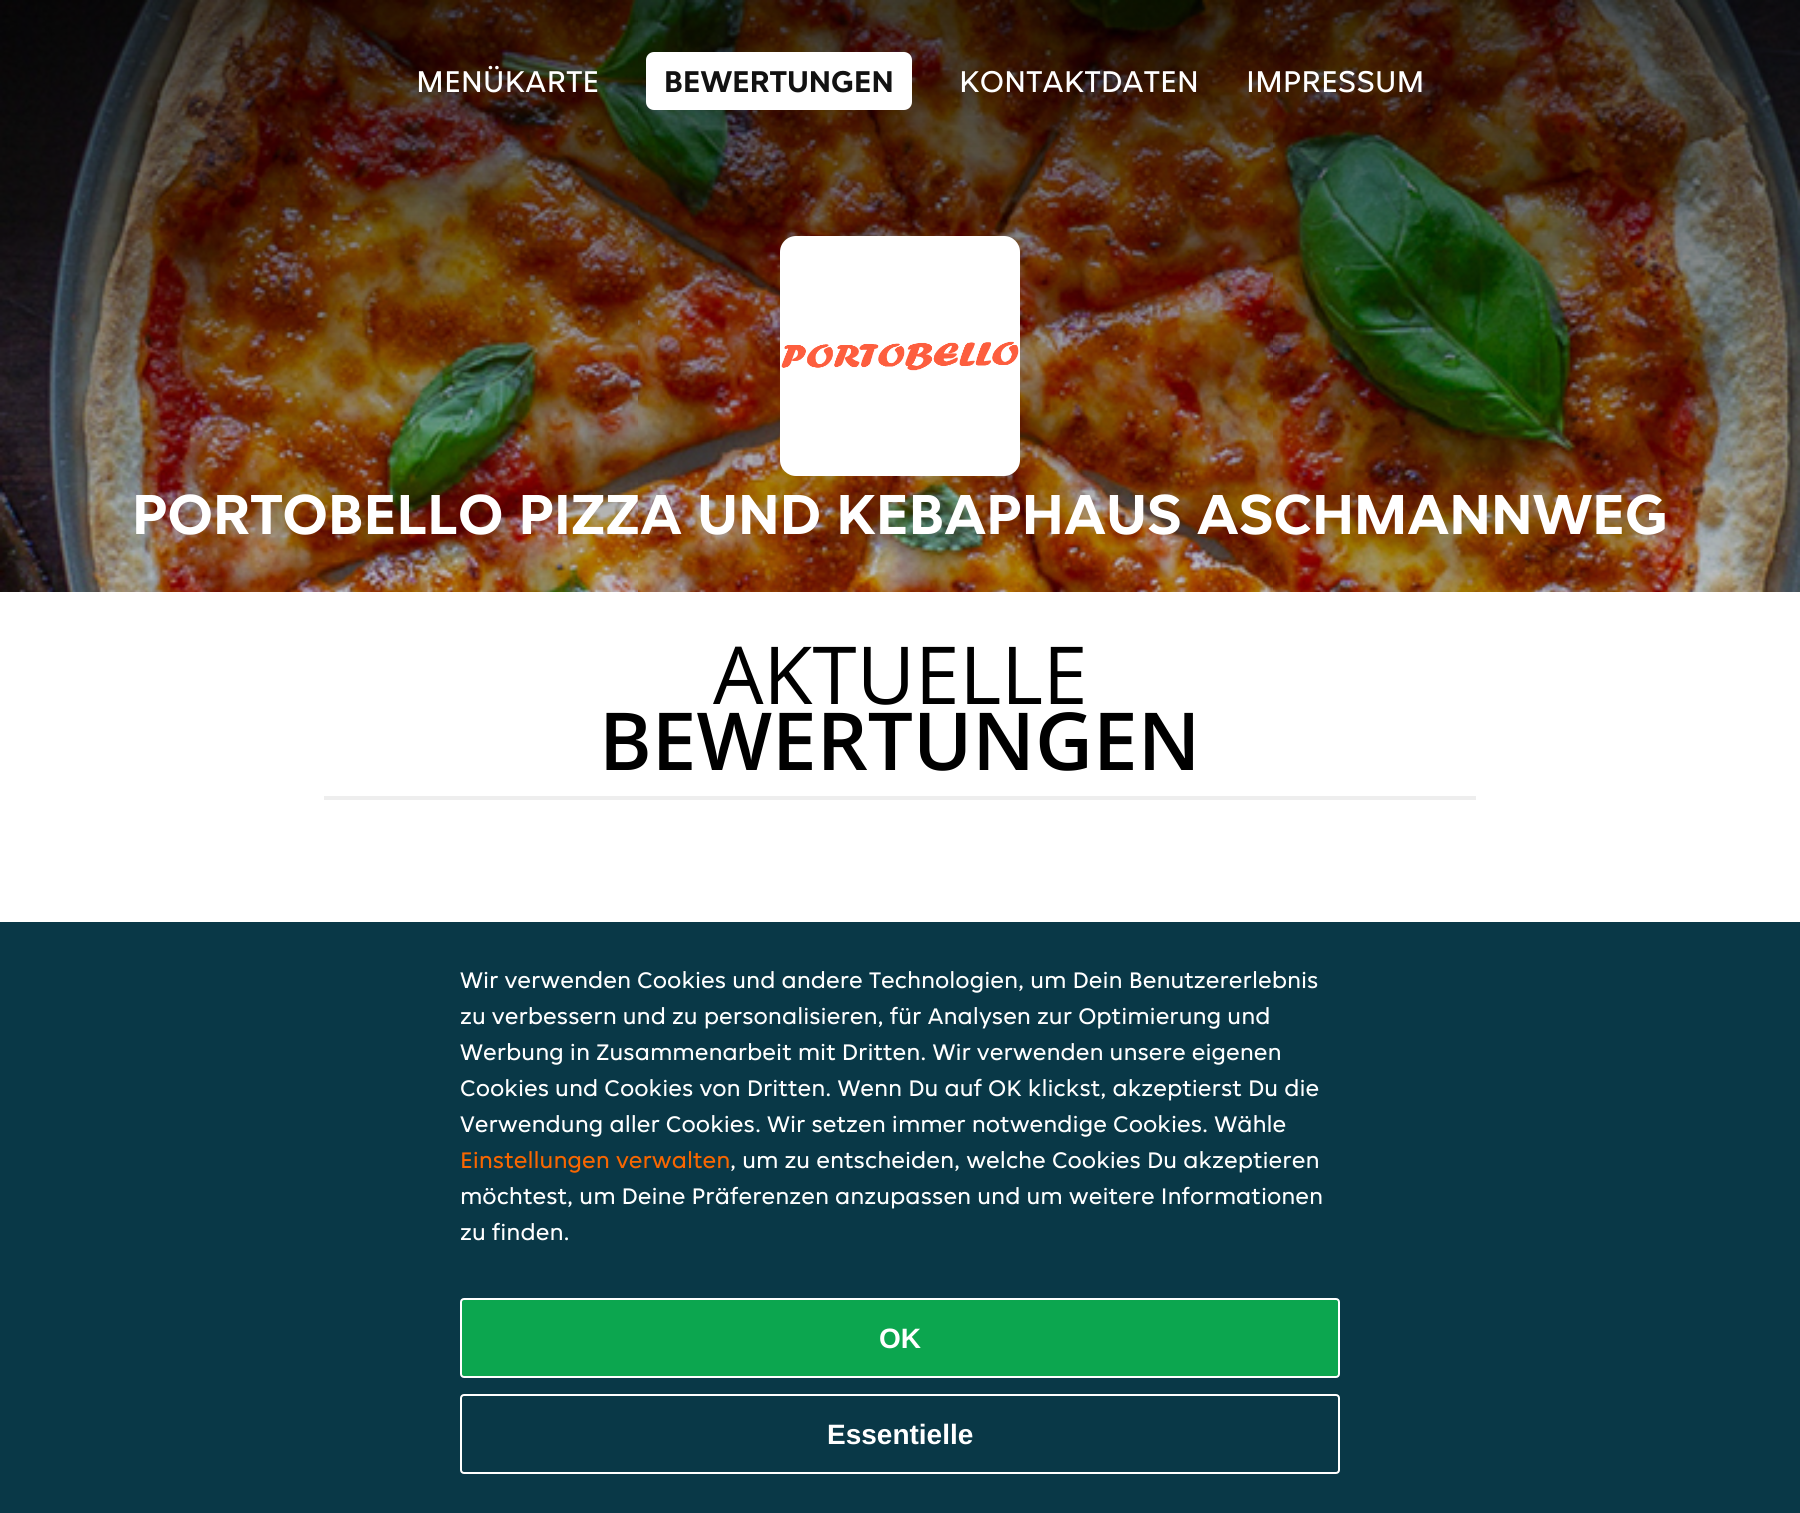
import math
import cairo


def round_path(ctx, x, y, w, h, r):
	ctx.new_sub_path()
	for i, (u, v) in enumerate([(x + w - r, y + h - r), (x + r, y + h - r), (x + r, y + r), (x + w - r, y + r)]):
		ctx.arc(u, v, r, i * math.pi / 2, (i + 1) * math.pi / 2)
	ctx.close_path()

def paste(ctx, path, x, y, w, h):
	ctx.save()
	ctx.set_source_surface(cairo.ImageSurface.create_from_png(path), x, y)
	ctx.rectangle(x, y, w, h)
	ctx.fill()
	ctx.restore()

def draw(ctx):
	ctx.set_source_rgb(1, 1, 1)
	ctx.paint()
	paste(ctx, 'media/1.png', 0, 0, 1800, 592)
	gradient = cairo.LinearGradient(900, 0, 900, 1000)
	gradient.add_color_stop_rgba(0, 0, 0, 0, 0.7)
	gradient.add_color_stop_rgba(0.33, 0, 0, 0, 0.4)
	gradient.add_color_stop_rgba(0.67, 0, 0, 0, 0.2)
	gradient.add_color_stop_rgba(1, 0, 0, 0, 0)
	ctx.set_source(gradient)
	ctx.rectangle(0, 0, 1800, 592)
	ctx.fill()
	ctx.select_font_face('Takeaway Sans')
	ctx.set_font_size(32)
	ctx.set_source_rgb(1, 1, 1)
	ctx.move_to(416, 92)
	ctx.show_text('MENÜKARTE')
	round_path(ctx, 646, 52, 266, 58, 8)
	ctx.fill()
	ctx.select_font_face('Takeaway Sans', cairo.FONT_SLANT_NORMAL, cairo.FONT_WEIGHT_BOLD)
	ctx.set_source_rgb(0.071, 0.071, 0.071)
	ctx.move_to(664, 92)
	ctx.show_text('BEWERTUNGEN')
	ctx.select_font_face('Takeaway Sans')
	ctx.set_source_rgb(1, 1, 1)
	ctx.move_to(959, 92)
	ctx.show_text('KONTAKTDATEN')
	ctx.move_to(1246, 92)
	ctx.show_text('IMPRESSUM')
	round_path(ctx, 780, 236, 240, 240, 16)
	ctx.fill()
	paste(ctx, 'media/2.png', 781, 341, 238, 30)
	ctx.select_font_face('Takeaway Sans', cairo.FONT_SLANT_NORMAL, cairo.FONT_WEIGHT_BOLD)
	ctx.set_font_size(60)
	ctx.move_to(132, 534)
	ctx.show_text('PORTOBELLO PIZZA UND KEBAPHAUS ASCHMANNWEG')
	ctx.select_font_face('Open Sans')
	ctx.set_font_size(80)
	ctx.set_source_rgb(0, 0, 0)
	ctx.move_to(713, 704)
	ctx.show_text('AKTUELLE')
	ctx.select_font_face('Open Sans SemiBold')
	ctx.move_to(599, 770)
	ctx.show_text('BEWERTUNGEN')
	ctx.set_source_rgb(0.933, 0.933, 0.933)
	ctx.rectangle(324, 796, 1152, 4)
	ctx.fill()
	ctx.set_source_rgb(0.039, 0.22, 0.278)
	ctx.rectangle(0, 922, 1800, 591)
	ctx.fill()
	ctx.select_font_face('Takeaway Sans')
	ctx.set_font_size(24)
	ctx.set_source_rgb(1, 1, 1)
	for x, y, s in [
		(460, 988, 'Wir verwenden Cookies und andere Technologien, um Dein Benutzererlebnis'),
		(460, 1024, 'zu verbessern und zu personalisieren, für Analysen zur Optimierung und'),
		(460, 1060, 'Werbung in Zusammenarbeit mit Dritten. Wir verwenden unsere eigenen'),
		(460, 1096, 'Cookies und Cookies von Dritten. Wenn Du auf OK klickst, akzeptierst Du die'),
		(460, 1132, 'Verwendung aller Cookies. Wir setzen immer notwendige Cookies. Wähle'),
	]:
		ctx.move_to(x, y)
		ctx.show_text(s)
	ctx.set_source_rgb(0.973, 0.4, 0)
	ctx.move_to(460, 1168)
	ctx.show_text('Einstellungen verwalten')
	ctx.set_source_rgb(1, 1, 1)
	for x, y, s in [
		(730, 1168, ', um zu entscheiden, welche Cookies Du akzeptieren'),
		(460, 1204, 'möchtest, um Deine Präferenzen anzupassen und um weitere Informationen'),
		(460, 1240, 'zu finden.'),
	]:
		ctx.move_to(x, y)
		ctx.show_text(s)
	ctx.set_source_rgb(0.047, 0.651, 0.31)
	round_path(ctx, 461, 1299, 878, 78, 3)
	ctx.fill_preserve()
	ctx.set_source_rgb(1, 1, 1)
	ctx.stroke()
	ctx.select_font_face('Liberation Sans', cairo.FONT_SLANT_NORMAL, cairo.FONT_WEIGHT_BOLD)
	ctx.set_font_size(28)
	ctx.move_to(879, 1348)
	ctx.show_text('OK')
	round_path(ctx, 461, 1395, 878, 78, 3)
	ctx.stroke()
	ctx.move_to(827, 1444)
	ctx.show_text('Essentielle')


surface = cairo.ImageSurface(cairo.FORMAT_RGB24, 1800, 1513)
ctx = cairo.Context(surface)
options = cairo.FontOptions()
options.set_hint_metrics(cairo.HINT_METRICS_OFF)
options.set_hint_style(cairo.HINT_STYLE_NONE)
ctx.set_font_options(options)
ctx.set_miter_limit(4)
draw(ctx)
surface.write_to_png('image.png')
